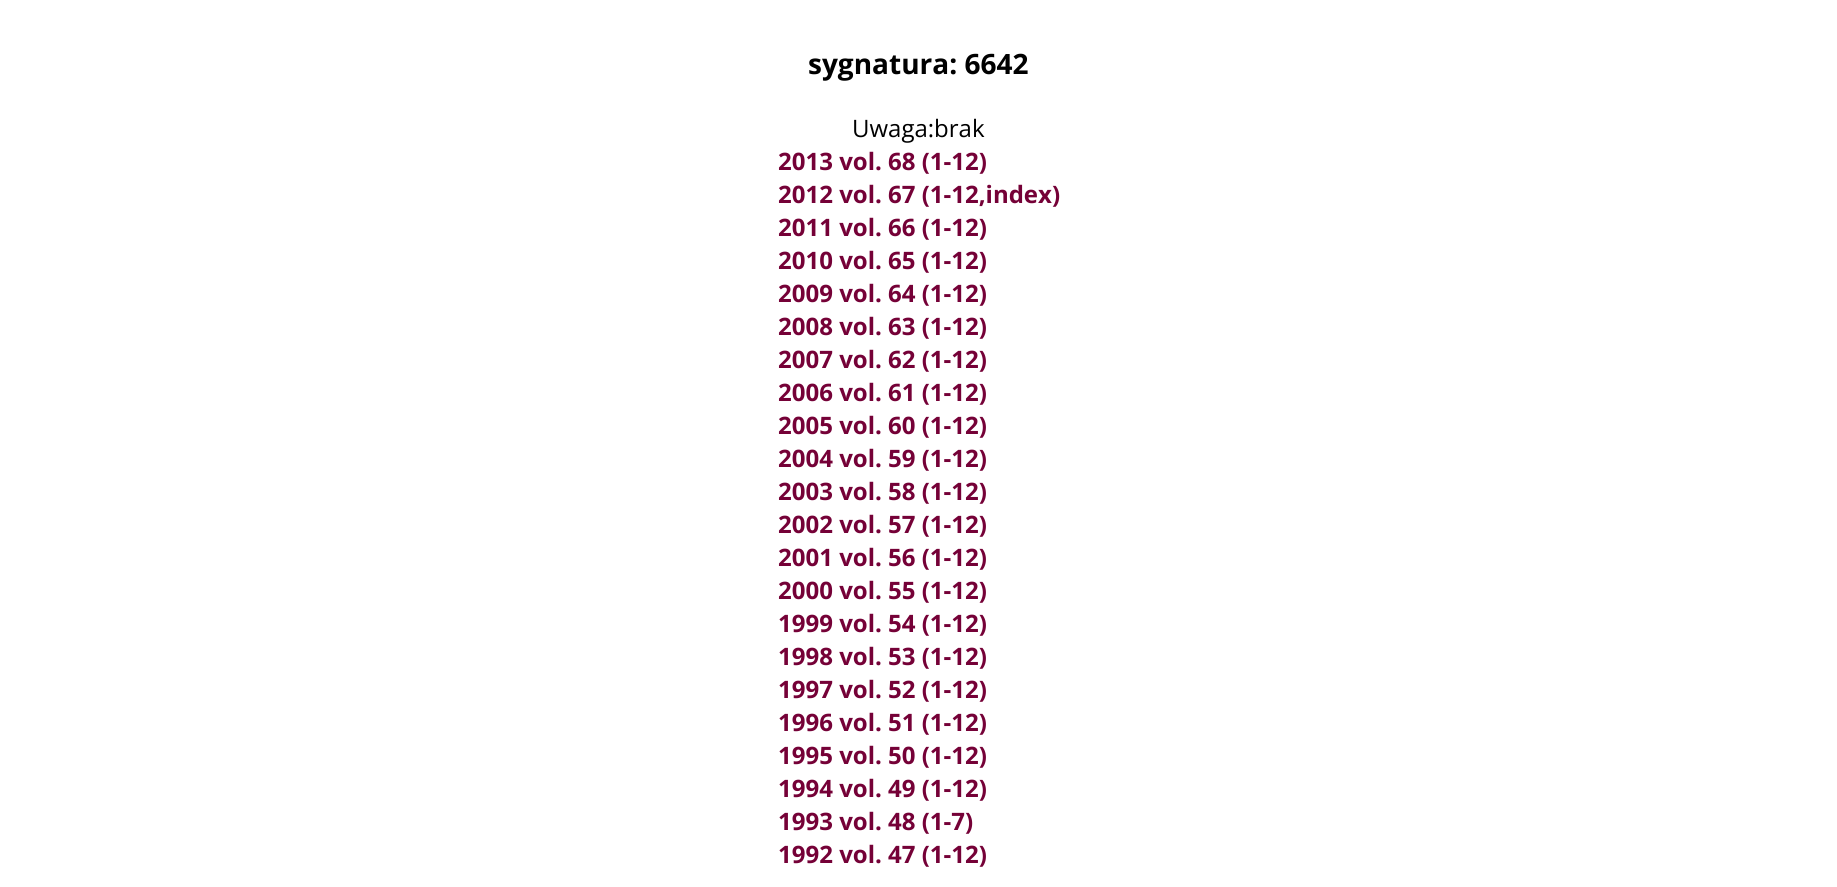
import math
import cairo


def draw(ctx):
	ctx.set_source_rgb(1, 1, 1)
	ctx.paint()
	ctx.select_font_face('Open Sans', cairo.FONT_SLANT_NORMAL, cairo.FONT_WEIGHT_BOLD)
	ctx.set_font_size(28)
	ctx.set_source_rgb(0, 0, 0)
	ctx.move_to(808, 74)
	ctx.show_text('sygnatura: 6642')
	ctx.select_font_face('Open Sans')
	ctx.set_font_size(24)
	ctx.move_to(852, 137)
	ctx.show_text('Uwaga:brak')
	ctx.select_font_face('Open Sans', cairo.FONT_SLANT_NORMAL, cairo.FONT_WEIGHT_BOLD)
	ctx.set_source_rgb(0.459, 0.004, 0.216)
	for x, y, s in [
		(778, 170, '2013 vol. 68 (1-12)'),
		(778, 203, '2012 vol. 67 (1-12,index)'),
		(778, 236, '2011 vol. 66 (1-12)'),
		(778, 269, '2010 vol. 65 (1-12)'),
		(778, 302, '2009 vol. 64 (1-12)'),
		(778, 335, '2008 vol. 63 (1-12)'),
		(778, 368, '2007 vol. 62 (1-12)'),
		(778, 401, '2006 vol. 61 (1-12)'),
		(778, 434, '2005 vol. 60 (1-12)'),
		(778, 467, '2004 vol. 59 (1-12)'),
		(778, 500, '2003 vol. 58 (1-12)'),
		(778, 533, '2002 vol. 57 (1-12)'),
		(778, 566, '2001 vol. 56 (1-12)'),
		(778, 599, '2000 vol. 55 (1-12)'),
		(778, 632, '1999 vol. 54 (1-12)'),
		(778, 665, '1998 vol. 53 (1-12)'),
		(778, 698, '1997 vol. 52 (1-12)'),
		(778, 731, '1996 vol. 51 (1-12)'),
		(778, 764, '1995 vol. 50 (1-12)'),
		(778, 797, '1994 vol. 49 (1-12)'),
		(778, 830, '1993 vol. 48 (1-7)'),
		(778, 863, '1992 vol. 47 (1-12)'),
	]:
		ctx.move_to(x, y)
		ctx.show_text(s)


surface = cairo.ImageSurface(cairo.FORMAT_RGB24, 1837, 887)
ctx = cairo.Context(surface)
options = cairo.FontOptions()
options.set_hint_metrics(cairo.HINT_METRICS_OFF)
options.set_hint_style(cairo.HINT_STYLE_NONE)
ctx.set_font_options(options)
ctx.set_miter_limit(4)
draw(ctx)
surface.write_to_png('image.png')
